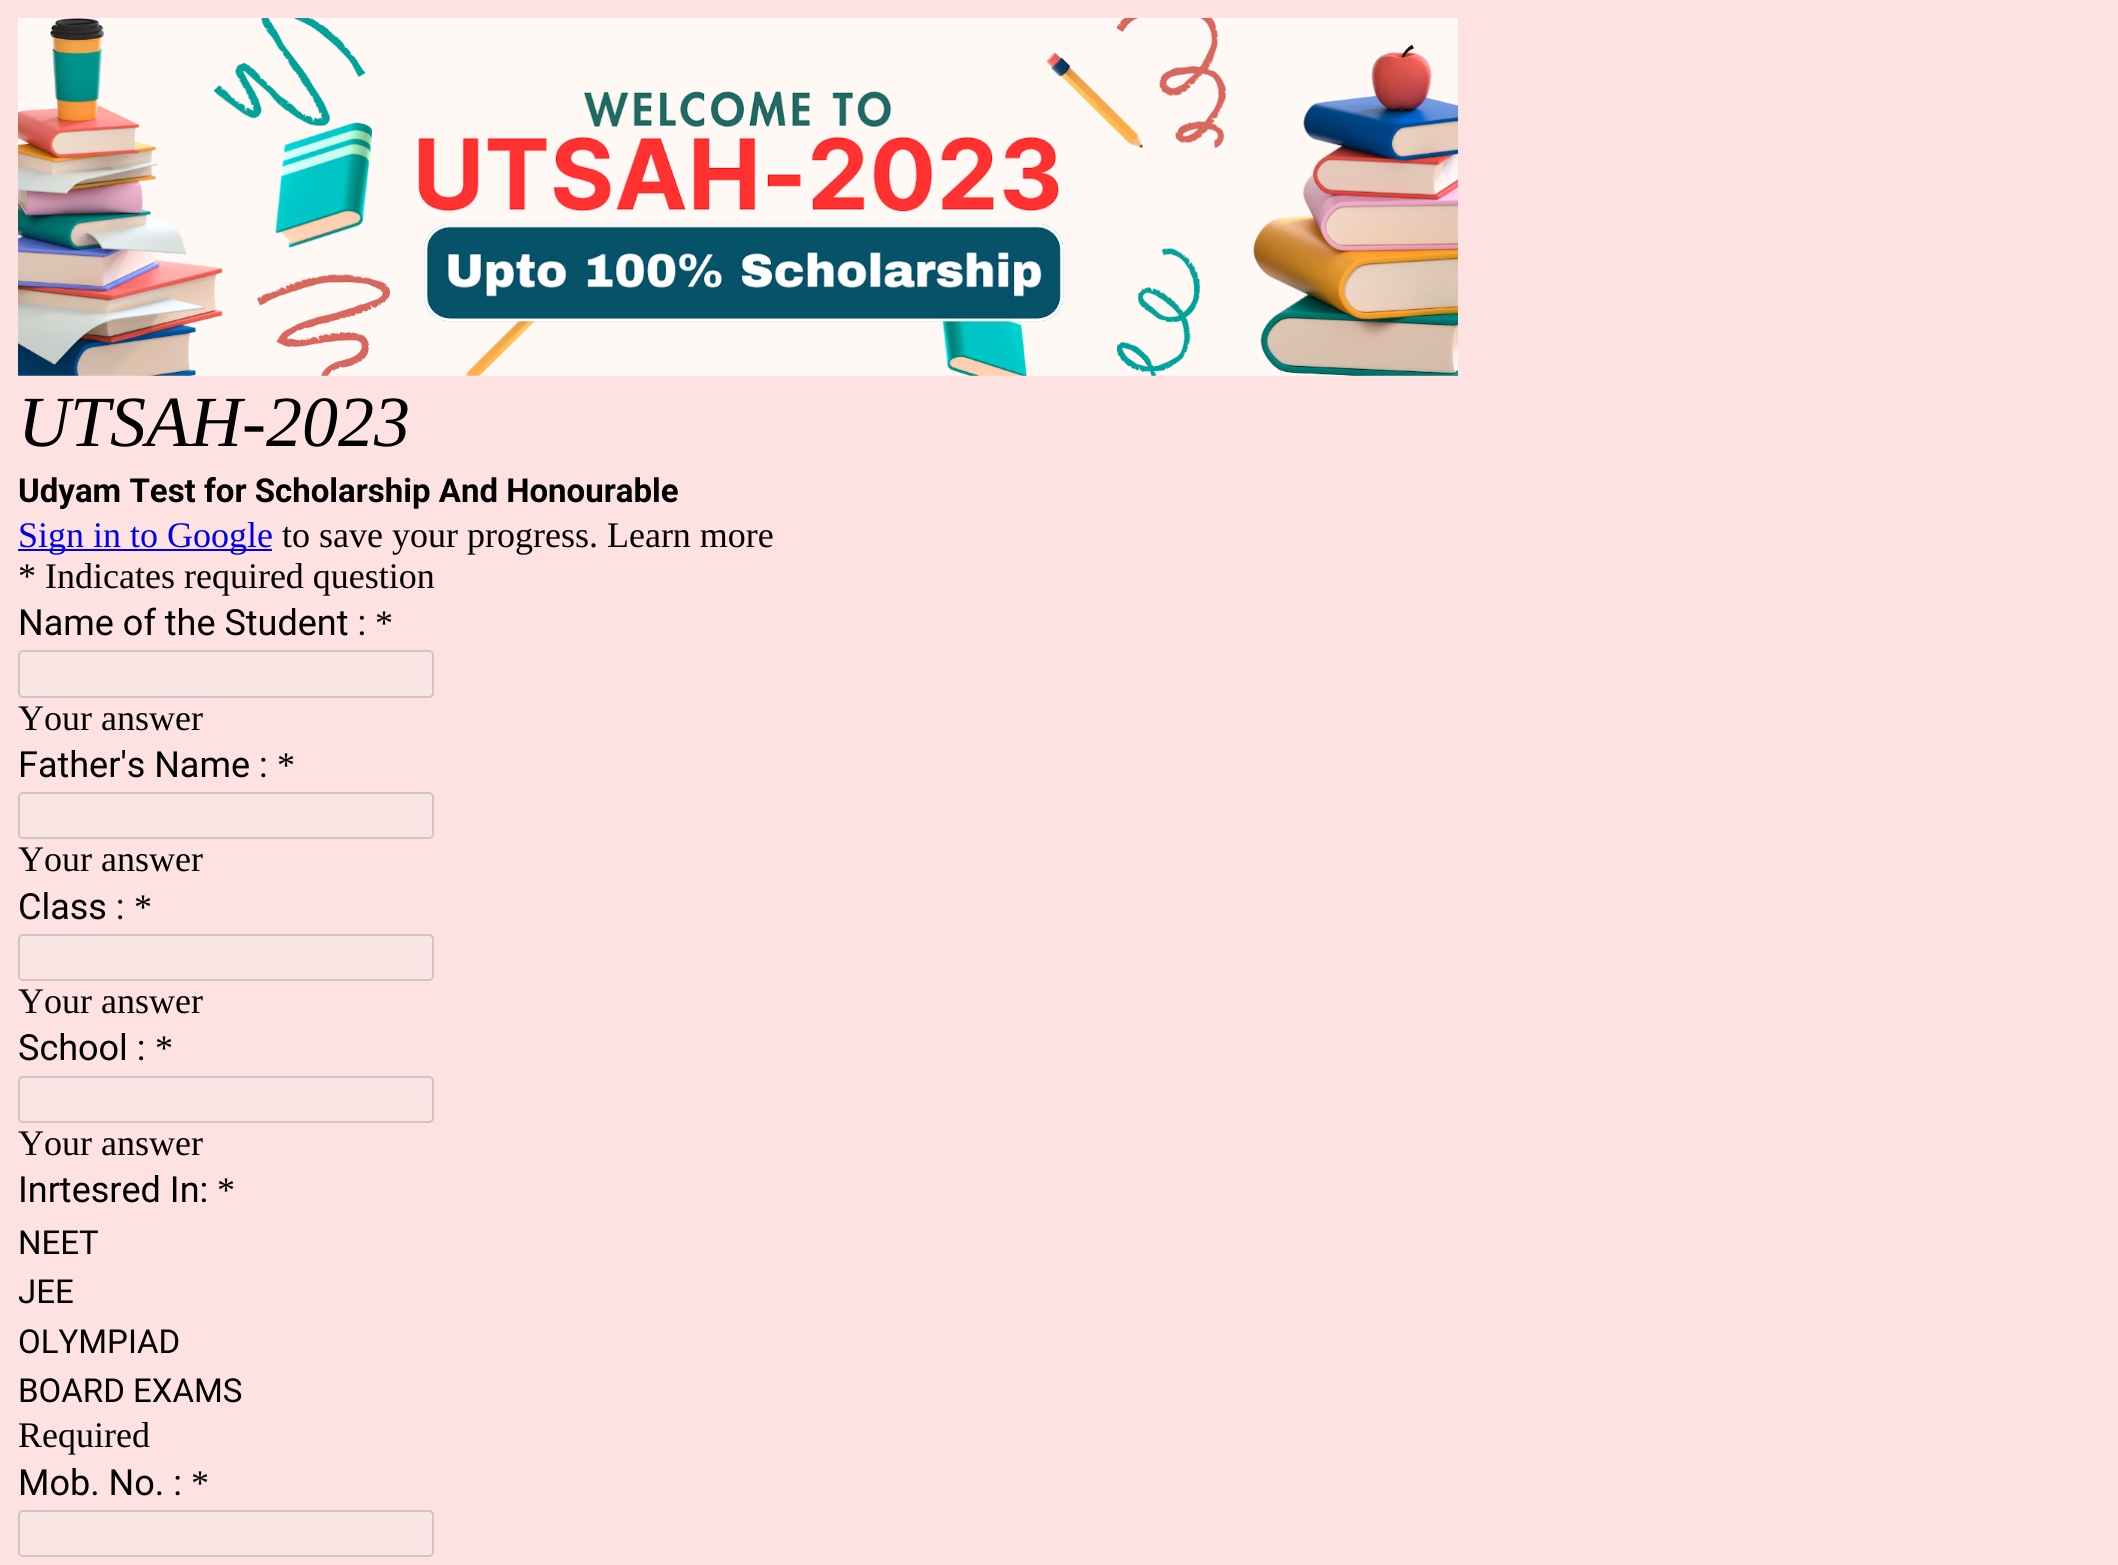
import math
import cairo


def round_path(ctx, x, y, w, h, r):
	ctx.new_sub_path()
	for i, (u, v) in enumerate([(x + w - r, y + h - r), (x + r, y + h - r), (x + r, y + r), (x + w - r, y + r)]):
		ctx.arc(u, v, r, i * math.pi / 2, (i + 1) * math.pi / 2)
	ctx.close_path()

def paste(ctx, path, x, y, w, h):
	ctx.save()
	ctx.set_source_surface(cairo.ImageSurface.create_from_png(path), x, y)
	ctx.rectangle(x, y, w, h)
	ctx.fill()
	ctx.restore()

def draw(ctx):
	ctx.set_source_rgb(0.996, 0.882, 0.882)
	ctx.paint()
	paste(ctx, 'media/1.png', 18, 18, 1440, 358)
	ctx.select_font_face('Liberation Serif', cairo.FONT_SLANT_ITALIC)
	ctx.set_font_size(72)
	ctx.set_source_rgb(0, 0, 0)
	ctx.move_to(18, 446)
	ctx.show_text('UTSAH-2023')
	ctx.select_font_face('Roboto', cairo.FONT_SLANT_NORMAL, cairo.FONT_WEIGHT_BOLD)
	ctx.set_font_size(33)
	ctx.move_to(18, 502)
	ctx.show_text('Udyam Test for Scholarship And Honourable')
	ctx.set_source_rgb(0, 0, 0.933)
	ctx.rectangle(18, 549, 254, 2)
	ctx.fill()
	ctx.select_font_face('Liberation Serif')
	ctx.set_font_size(36)
	ctx.move_to(18, 547)
	ctx.show_text('Sign in to Google')
	ctx.set_source_rgb(0, 0, 0)
	ctx.move_to(282, 547)
	ctx.show_text('to save your progress. Learn more')
	ctx.move_to(18, 588)
	ctx.show_text('* Indicates required question')
	ctx.select_font_face('Roboto')
	ctx.move_to(18, 635)
	ctx.show_text('Name of the Student :')
	ctx.select_font_face('Liberation Serif')
	ctx.move_to(375, 635)
	ctx.show_text('*')
	ctx.set_source_rgb(0.98, 0.898, 0.898)
	round_path(ctx, 19, 651, 414, 46, 4)
	ctx.fill_preserve()
	ctx.set_source_rgb(0.824, 0.769, 0.769)
	ctx.stroke()
	ctx.set_source_rgb(0, 0, 0)
	ctx.move_to(18, 730)
	ctx.show_text('Your answer')
	ctx.select_font_face('Roboto')
	ctx.move_to(18, 777)
	ctx.show_text('Father\'s Name :')
	ctx.select_font_face('Liberation Serif')
	ctx.move_to(277, 777)
	ctx.show_text('*')
	ctx.set_source_rgb(0.98, 0.898, 0.898)
	round_path(ctx, 19, 793, 414, 45, 4)
	ctx.fill_preserve()
	ctx.set_source_rgb(0.824, 0.769, 0.769)
	ctx.stroke()
	ctx.set_source_rgb(0, 0, 0)
	ctx.move_to(18, 871)
	ctx.show_text('Your answer')
	ctx.select_font_face('Roboto')
	ctx.move_to(18, 919)
	ctx.show_text('Class :')
	ctx.select_font_face('Liberation Serif')
	ctx.move_to(134, 919)
	ctx.show_text('*')
	ctx.set_source_rgb(0.98, 0.898, 0.898)
	round_path(ctx, 19, 935, 414, 45, 4)
	ctx.fill_preserve()
	ctx.set_source_rgb(0.824, 0.769, 0.769)
	ctx.stroke()
	ctx.set_source_rgb(0, 0, 0)
	ctx.move_to(18, 1013)
	ctx.show_text('Your answer')
	ctx.select_font_face('Roboto')
	ctx.move_to(18, 1060)
	ctx.show_text('School :')
	ctx.select_font_face('Liberation Serif')
	ctx.move_to(155, 1060)
	ctx.show_text('*')
	ctx.set_source_rgb(0.98, 0.898, 0.898)
	round_path(ctx, 19, 1077, 414, 45, 4)
	ctx.fill_preserve()
	ctx.set_source_rgb(0.824, 0.769, 0.769)
	ctx.stroke()
	ctx.set_source_rgb(0, 0, 0)
	ctx.move_to(18, 1155)
	ctx.show_text('Your answer')
	ctx.select_font_face('Roboto')
	ctx.move_to(18, 1202)
	ctx.show_text('Inrtesred In:')
	ctx.select_font_face('Liberation Serif')
	ctx.move_to(217, 1202)
	ctx.show_text('*')
	ctx.select_font_face('Roboto')
	ctx.set_font_size(33)
	for x, y, s in [
		(18, 1254, 'NEET'),
		(18, 1303, 'JEE'),
		(18, 1353, 'OLYMPIAD'),
		(18, 1402, 'BOARD EXAMS'),
	]:
		ctx.move_to(x, y)
		ctx.show_text(s)
	ctx.select_font_face('Liberation Serif')
	ctx.set_font_size(36)
	ctx.move_to(18, 1447)
	ctx.show_text('Required')
	ctx.select_font_face('Roboto')
	ctx.move_to(18, 1495)
	ctx.show_text('Mob. No. :')
	ctx.select_font_face('Liberation Serif')
	ctx.move_to(191, 1495)
	ctx.show_text('*')
	ctx.set_source_rgb(0.98, 0.898, 0.898)
	round_path(ctx, 19, 1511, 414, 45, 4)
	ctx.fill_preserve()
	ctx.set_source_rgb(0.824, 0.769, 0.769)
	ctx.stroke()


surface = cairo.ImageSurface(cairo.FORMAT_RGB24, 2118, 1565)
ctx = cairo.Context(surface)
options = cairo.FontOptions()
options.set_hint_metrics(cairo.HINT_METRICS_OFF)
options.set_hint_style(cairo.HINT_STYLE_NONE)
ctx.set_font_options(options)
ctx.set_miter_limit(4)
draw(ctx)
surface.write_to_png('image.png')
